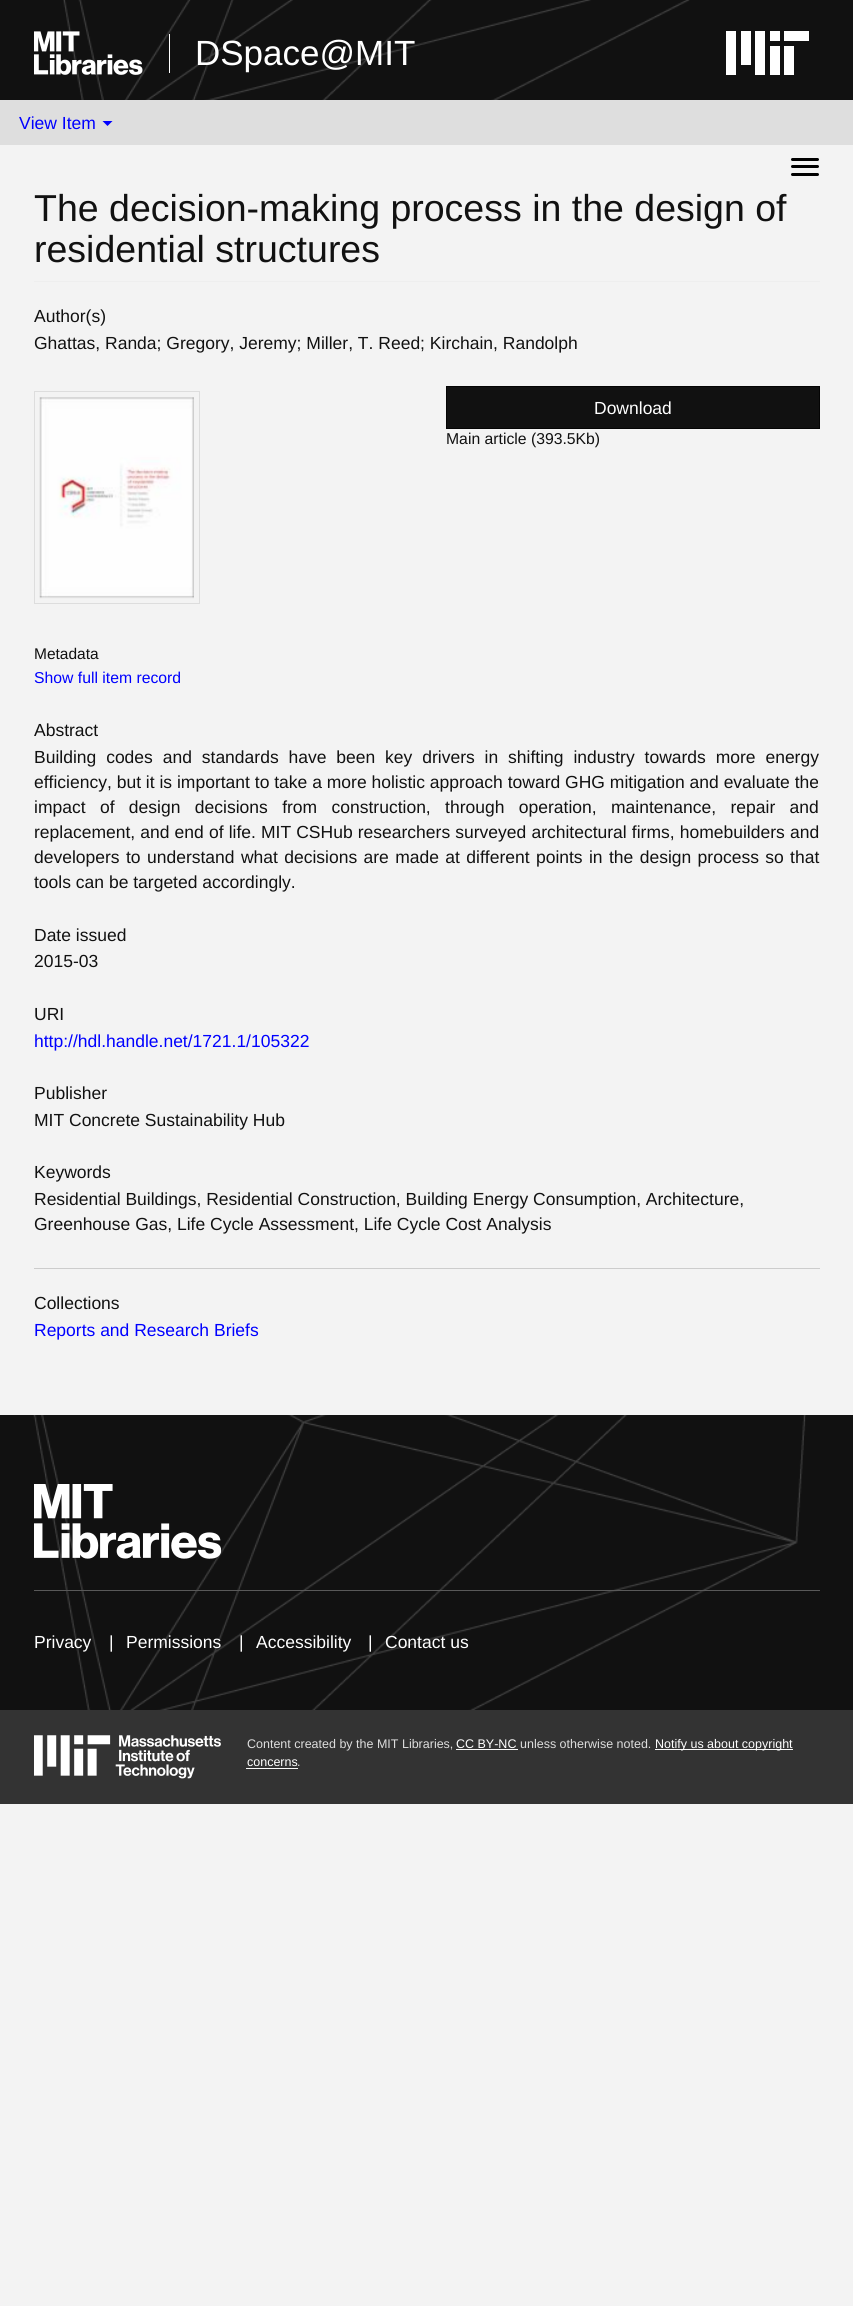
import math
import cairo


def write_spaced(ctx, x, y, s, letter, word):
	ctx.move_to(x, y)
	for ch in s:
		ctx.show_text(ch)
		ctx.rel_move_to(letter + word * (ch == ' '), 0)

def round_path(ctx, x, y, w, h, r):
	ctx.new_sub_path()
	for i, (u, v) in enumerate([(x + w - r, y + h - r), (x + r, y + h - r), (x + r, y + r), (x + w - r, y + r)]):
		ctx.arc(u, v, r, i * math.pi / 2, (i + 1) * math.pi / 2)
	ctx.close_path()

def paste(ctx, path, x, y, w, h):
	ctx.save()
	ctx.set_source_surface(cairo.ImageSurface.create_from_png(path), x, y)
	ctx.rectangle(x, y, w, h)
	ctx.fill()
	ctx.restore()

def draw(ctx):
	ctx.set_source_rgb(0.953, 0.953, 0.953)
	ctx.paint()
	ctx.set_source_rgb(0.067, 0.067, 0.067)
	ctx.rectangle(0, 0, 853, 100)
	ctx.fill()
	paste(ctx, 'media/1.png', 63, 0, 627, 100)
	paste(ctx, 'media/2.png', 34, 31, 109, 44)
	ctx.select_font_face('Liberation Sans')
	ctx.set_font_size(35)
	ctx.set_source_rgb(1, 1, 1)
	ctx.move_to(195, 65)
	ctx.show_text('DSpace@MIT')
	ctx.rectangle(169, 34, 1, 39)
	ctx.fill()
	ctx.new_path()
	ctx.move_to(770, 75)
	ctx.line_to(780, 75)
	ctx.line_to(780, 46)
	ctx.line_to(770, 46)
	ctx.close_path()
	ctx.move_to(784, 41)
	ctx.line_to(809, 41)
	ctx.line_to(809, 31)
	ctx.line_to(784, 31)
	ctx.close_path()
	ctx.move_to(770, 31)
	ctx.line_to(780, 31)
	ctx.line_to(780, 41)
	ctx.line_to(770, 41)
	ctx.close_path()
	ctx.move_to(755, 75)
	ctx.line_to(765, 75)
	ctx.line_to(765, 31)
	ctx.line_to(755, 31)
	ctx.close_path()
	ctx.move_to(741, 65)
	ctx.line_to(751, 65)
	ctx.line_to(751, 31)
	ctx.line_to(741, 31)
	ctx.close_path()
	ctx.move_to(726, 75)
	ctx.line_to(736, 75)
	ctx.line_to(736, 31)
	ctx.line_to(726, 31)
	ctx.close_path()
	ctx.move_to(784, 75)
	ctx.line_to(794, 75)
	ctx.line_to(794, 46)
	ctx.line_to(784, 46)
	ctx.close_path()
	ctx.fill()
	ctx.set_source_rgb(0.871, 0.871, 0.871)
	ctx.rectangle(0, 100, 853, 45)
	ctx.fill()
	ctx.set_font_size(17.5)
	ctx.set_source_rgb(0, 0, 1)
	ctx.move_to(19, 129)
	ctx.show_text('View Item')
	ctx.new_path()
	ctx.move_to(102.5, 121)
	ctx.line_to(112.5, 121)
	ctx.line_to(107.5, 126)
	ctx.close_path()
	ctx.fill()
	ctx.set_source_rgb(0, 0, 0)
	round_path(ctx, 791, 158, 28, 3, 1.5)
	ctx.fill()
	round_path(ctx, 791, 165, 28, 3, 1.5)
	ctx.fill()
	round_path(ctx, 791, 173, 28, 3, 1.5)
	ctx.fill()
	ctx.set_source_rgb(0.933, 0.933, 0.933)
	ctx.rectangle(34, 281, 786, 1)
	ctx.fill()
	ctx.set_font_size(37.5)
	ctx.set_source_rgb(0.067, 0.067, 0.067)
	ctx.move_to(34, 221)
	ctx.show_text('The decision-making process in the design of')
	ctx.move_to(34, 262)
	ctx.show_text('residential structures')
	ctx.set_font_size(17.5)
	ctx.move_to(34, 322)
	ctx.show_text('Author(s)')
	ctx.move_to(34, 349)
	ctx.show_text('Ghattas, Randa; Gregory, Jeremy; Miller, T. Reed; Kirchain, Randolph')
	ctx.rectangle(34.5, 391.5, 165, 212)
	ctx.set_source_rgb(0.867, 0.867, 0.867)
	ctx.set_line_width(1)
	ctx.stroke()
	paste(ctx, 'media/3.png', 39, 397, 155, 202)
	ctx.set_source_rgb(0.067, 0.067, 0.067)
	ctx.rectangle(446.5, 386.5, 373, 42)
	ctx.fill_preserve()
	ctx.set_source_rgb(0.016, 0.016, 0.016)
	ctx.stroke()
	ctx.set_source_rgb(1, 1, 1)
	ctx.move_to(594, 414)
	ctx.show_text('Download')
	ctx.set_font_size(15.75)
	ctx.set_source_rgb(0.067, 0.067, 0.067)
	ctx.move_to(446, 444)
	ctx.show_text('Main article (393.5Kb)')
	ctx.set_font_size(15.5)
	ctx.move_to(34, 659)
	ctx.show_text('Metadata')
	ctx.set_font_size(15.75)
	ctx.set_source_rgb(0, 0, 1)
	ctx.move_to(34, 683)
	ctx.show_text('Show full item record')
	ctx.set_font_size(17.5)
	ctx.set_source_rgb(0.067, 0.067, 0.067)
	ctx.move_to(34, 736)
	ctx.show_text('Abstract')
	write_spaced(ctx, 34, 763, 'Building codes and standards have been key drivers in shifting industry towards more energy', 0, 5)
	ctx.move_to(34, 788)
	ctx.show_text('efficiency, but it is important to take a more holistic approach toward GHG mitigation and evaluate the')
	write_spaced(ctx, 34, 813, 'impact of design decisions from construction, through operation, maintenance, repair and', 0, 9.5)
	write_spaced(ctx, 34, 838, 'replacement, and end of life. MIT CSHub researchers surveyed architectural firms, homebuilders and', 0, 0.25)
	write_spaced(ctx, 34, 863, 'developers to understand what decisions are made at different points in the design process so that', 0, 1.5)
	for x, y, s in [
		(34, 888, 'tools can be targeted accordingly.'),
		(34, 941, 'Date issued'),
		(34, 967, '2015-03'),
		(34, 1020, 'URI'),
	]:
		ctx.move_to(x, y)
		ctx.show_text(s)
	ctx.set_source_rgb(0, 0, 1)
	ctx.move_to(34, 1047)
	ctx.show_text('http://hdl.handle.net/1721.1/105322')
	ctx.set_source_rgb(0.067, 0.067, 0.067)
	for x, y, s in [
		(34, 1099, 'Publisher'),
		(34, 1126, 'MIT Concrete Sustainability Hub'),
		(34, 1178, 'Keywords'),
		(34, 1205, 'Residential Buildings, Residential Construction, Building Energy Consumption, Architecture,'),
		(34, 1230, 'Greenhouse Gas, Life Cycle Assessment, Life Cycle Cost Analysis'),
	]:
		ctx.move_to(x, y)
		ctx.show_text(s)
	ctx.set_source_rgb(0.8, 0.8, 0.8)
	ctx.rectangle(34, 1268, 786, 1)
	ctx.fill()
	ctx.set_source_rgb(0.067, 0.067, 0.067)
	ctx.move_to(34, 1309)
	ctx.show_text('Collections')
	ctx.set_source_rgb(0, 0, 1)
	ctx.move_to(34, 1336)
	ctx.show_text('Reports and Research Briefs')
	ctx.set_source_rgb(0.067, 0.067, 0.067)
	ctx.rectangle(0, 1415, 853, 295)
	ctx.fill()
	paste(ctx, 'media/4.png', 33, 1415, 773, 295)
	paste(ctx, 'media/5.png', 34, 1484, 187, 75)
	ctx.set_source_rgb(0.349, 0.349, 0.349)
	ctx.rectangle(34, 1590, 786, 1)
	ctx.fill()
	ctx.set_source_rgb(1, 1, 1)
	for x, y, s in [
		(34, 1648, 'Privacy'),
		(109, 1648, '|'),
		(126, 1648, 'Permissions'),
		(239, 1648, '|'),
		(256, 1648, 'Accessibility'),
		(368, 1648, '|'),
		(385, 1648, 'Contact us'),
	]:
		ctx.move_to(x, y)
		ctx.show_text(s)
	ctx.set_source_rgb(0.2, 0.2, 0.2)
	ctx.rectangle(0, 1710, 853, 94)
	ctx.fill()
	paste(ctx, 'media/6.png', 34, 1735, 187, 44)
	ctx.set_font_size(12.5)
	ctx.set_source_rgb(0.871, 0.871, 0.871)
	ctx.move_to(247, 1748)
	ctx.show_text('Content created by the MIT Libraries,')
	ctx.set_source_rgb(1, 1, 1)
	ctx.move_to(456, 1748)
	ctx.show_text('CC BY-NC')
	ctx.set_source_rgb(0.98, 0.98, 0.98)
	ctx.rectangle(456, 1749, 62, 1)
	ctx.fill()
	ctx.set_source_rgb(0.871, 0.871, 0.871)
	ctx.move_to(520, 1748)
	ctx.show_text('unless otherwise noted.')
	ctx.set_source_rgb(0.98, 0.98, 0.98)
	ctx.rectangle(655, 1749, 138, 1)
	ctx.fill()
	ctx.set_source_rgb(1, 1, 1)
	ctx.move_to(655, 1748)
	ctx.show_text('Notify us about copyright')
	ctx.move_to(247, 1766)
	ctx.show_text('concerns')
	ctx.set_source_rgb(0.98, 0.98, 0.98)
	ctx.rectangle(246, 1768, 52, 1)
	ctx.fill()
	ctx.set_source_rgb(0.871, 0.871, 0.871)
	ctx.move_to(297, 1766)
	ctx.show_text('.')


surface = cairo.ImageSurface(cairo.FORMAT_RGB24, 853, 2306)
ctx = cairo.Context(surface)
options = cairo.FontOptions()
options.set_hint_metrics(cairo.HINT_METRICS_OFF)
options.set_hint_style(cairo.HINT_STYLE_NONE)
ctx.set_font_options(options)
ctx.set_miter_limit(4)
draw(ctx)
surface.write_to_png('image.png')
